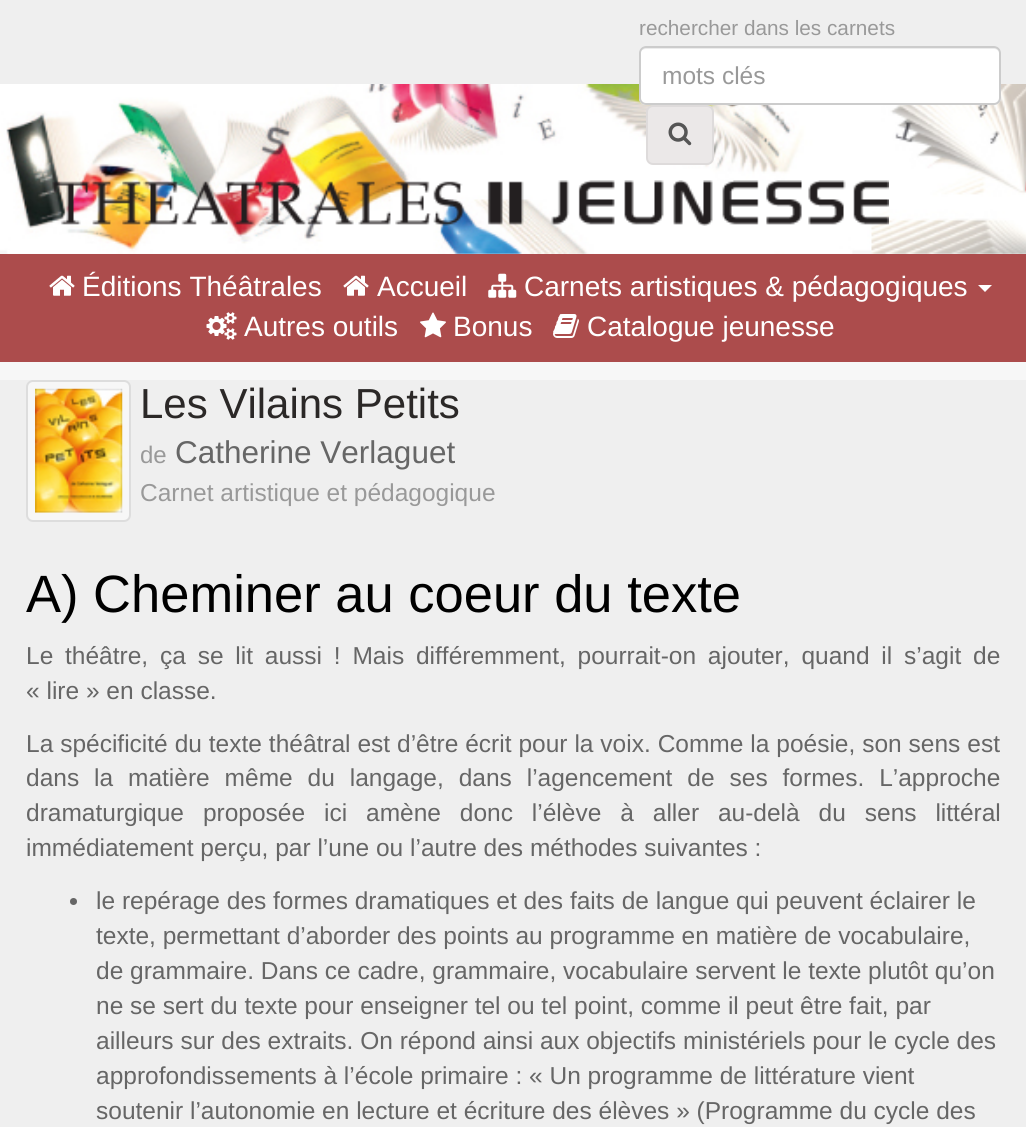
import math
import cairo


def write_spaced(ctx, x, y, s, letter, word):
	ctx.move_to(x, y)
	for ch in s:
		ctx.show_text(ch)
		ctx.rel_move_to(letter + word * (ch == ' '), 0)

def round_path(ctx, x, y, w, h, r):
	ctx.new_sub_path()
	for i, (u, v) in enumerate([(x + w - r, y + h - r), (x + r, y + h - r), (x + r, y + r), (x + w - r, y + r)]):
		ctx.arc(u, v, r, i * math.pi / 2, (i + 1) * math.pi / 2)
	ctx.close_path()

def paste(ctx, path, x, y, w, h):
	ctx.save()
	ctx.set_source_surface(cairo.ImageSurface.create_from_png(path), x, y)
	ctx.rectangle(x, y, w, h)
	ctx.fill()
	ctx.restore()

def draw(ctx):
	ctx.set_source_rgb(0.965, 0.965, 0.965)
	ctx.paint()
	ctx.set_source_rgb(0.937, 0.937, 0.937)
	ctx.rectangle(0, 0, 1026, 84)
	ctx.fill()
	ctx.select_font_face('Liberation Sans')
	ctx.set_font_size(20.75)
	ctx.set_source_rgb(0.6, 0.6, 0.6)
	ctx.move_to(639, 35)
	ctx.show_text('rechercher dans les carnets')
	paste(ctx, 'media/2.png', 0, 84, 1026, 170)
	ctx.set_source_rgb(1, 1, 1)
	round_path(ctx, 639, 46, 362, 59, 7)
	ctx.fill()
	ctx.set_source_rgb(0.925, 0.925, 0.925)
	ctx.new_path()
	ctx.move_to(646, 49)
	ctx.line_to(994, 49)
	ctx.curve_to(997, 49, 999, 51, 999, 54)
	ctx.curve_to(999, 51, 998, 47, 994, 47)
	ctx.line_to(646, 47)
	ctx.curve_to(644, 47, 641, 49, 641, 51)
	ctx.curve_to(642, 50, 644, 49, 646, 49)
	ctx.close_path()
	ctx.fill()
	round_path(ctx, 640, 47, 360, 57, 6)
	ctx.set_source_rgb(0.8, 0.8, 0.8)
	ctx.stroke()
	ctx.set_font_size(24.5)
	ctx.set_source_rgb(0.6, 0.6, 0.6)
	ctx.move_to(662, 84)
	ctx.show_text('mots clés')
	ctx.set_source_rgb(0.918, 0.91, 0.91)
	round_path(ctx, 647, 106, 66, 58, 6)
	ctx.fill_preserve()
	ctx.set_source_rgb(0.871, 0.859, 0.859)
	ctx.stroke()
	paste(ctx, 'media/1.png', 668, 122, 24, 24)
	paste(ctx, 'media/3.png', 52, 180, 837, 46)
	ctx.set_source_rgb(0.675, 0.298, 0.298)
	ctx.rectangle(0, 254, 1026, 108)
	ctx.fill()
	paste(ctx, 'media/4.png', 49, 275, 26, 21)
	ctx.set_font_size(28)
	ctx.set_source_rgb(1, 1, 1)
	ctx.move_to(82, 296)
	ctx.show_text('Éditions Théâtrales')
	paste(ctx, 'media/4.png', 343, 275, 26, 21)
	ctx.move_to(377, 296)
	ctx.show_text('Accueil')
	paste(ctx, 'media/5.png', 488, 273, 29, 25)
	ctx.move_to(524, 296)
	ctx.show_text('Carnets artistiques & pédagogiques')
	ctx.new_path()
	ctx.move_to(978, 285)
	ctx.line_to(992, 285)
	ctx.line_to(985, 292)
	ctx.close_path()
	ctx.fill()
	paste(ctx, 'media/6.png', 206, 312, 31, 28)
	ctx.move_to(244, 336)
	ctx.show_text('Autres outils')
	paste(ctx, 'media/7.png', 420, 312, 26, 26)
	ctx.move_to(453, 336)
	ctx.show_text('Bonus')
	paste(ctx, 'media/8.png', 553, 314, 26, 24)
	ctx.move_to(587, 336)
	ctx.show_text('Catalogue jeunesse')
	ctx.set_source_rgb(0.937, 0.937, 0.937)
	ctx.rectangle(0, 380, 1026, 747)
	ctx.fill()
	ctx.set_source_rgb(0.965, 0.965, 0.965)
	round_path(ctx, 27, 381, 103, 140, 6)
	ctx.fill_preserve()
	ctx.set_source_rgb(0.867, 0.867, 0.867)
	ctx.stroke()
	paste(ctx, 'media/9.png', 35, 388, 88, 125)
	ctx.set_font_size(42)
	ctx.set_source_rgb(0.169, 0.157, 0.153)
	ctx.move_to(140, 418)
	ctx.show_text('Les Vilains Petits')
	ctx.set_font_size(24)
	ctx.set_source_rgb(0.6, 0.6, 0.6)
	ctx.move_to(140, 463)
	ctx.show_text('de')
	ctx.set_font_size(31.5)
	ctx.set_source_rgb(0.4, 0.4, 0.4)
	ctx.move_to(175, 463)
	ctx.show_text('Catherine Verlaguet')
	ctx.set_font_size(24.5)
	ctx.set_source_rgb(0.6, 0.6, 0.6)
	ctx.move_to(140, 501)
	ctx.show_text('Carnet artistique et pédagogique')
	ctx.set_font_size(52.5)
	ctx.set_source_rgb(0, 0, 0)
	ctx.move_to(26, 612)
	ctx.show_text('A) Cheminer au coeur du texte')
	ctx.set_font_size(24.5)
	ctx.set_source_rgb(0.4, 0.4, 0.4)
	write_spaced(ctx, 26, 664, 'Le théâtre, ça se lit aussi ! Mais différemment, pourrait-on ajouter, quand il s’agit de', 0, 5)
	ctx.move_to(26, 699)
	ctx.show_text('« lire » en classe.')
	write_spaced(ctx, 26, 752, 'La spécificité du texte théâtral est d’être écrit pour la voix. Comme la poésie, son sens est', 0, 0.1)
	write_spaced(ctx, 26, 786, 'dans la matière même du langage, dans l’agencement de ses formes. L’approche', 0, 8.1)
	write_spaced(ctx, 26, 821, 'dramaturgique proposée ici amène donc l’élève à aller au-delà du sens littéral', 0, 12.1)
	ctx.move_to(26, 856)
	ctx.show_text('immédiatement perçu, par l’une ou l’autre des méthodes suivantes :')
	ctx.new_path()
	ctx.arc(73.5, 901.5, 3.5, 0, 2 * math.pi)
	ctx.fill()
	for x, y, s in [
		(96, 909, 'le repérage des formes dramatiques et des faits de langue qui peuvent éclairer le'),
		(96, 944, 'texte, permettant d’aborder des points au programme en matière de vocabulaire,'),
		(96, 979, 'de grammaire. Dans ce cadre, grammaire, vocabulaire servent le texte plutôt qu’on'),
		(96, 1014, 'ne se sert du texte pour enseigner tel ou tel point, comme il peut être fait, par'),
		(96, 1049, 'ailleurs sur des extraits. On répond ainsi aux objectifs ministériels pour le cycle des'),
		(96, 1084, 'approfondissements à l’école primaire : « Un programme de littérature vient'),
		(96, 1119, 'soutenir l’autonomie en lecture et écriture des élèves » (Programme du cycle des'),
	]:
		ctx.move_to(x, y)
		ctx.show_text(s)


surface = cairo.ImageSurface(cairo.FORMAT_RGB24, 1026, 1127)
ctx = cairo.Context(surface)
options = cairo.FontOptions()
options.set_hint_metrics(cairo.HINT_METRICS_OFF)
options.set_hint_style(cairo.HINT_STYLE_NONE)
ctx.set_font_options(options)
ctx.set_miter_limit(4)
draw(ctx)
surface.write_to_png('image.png')
